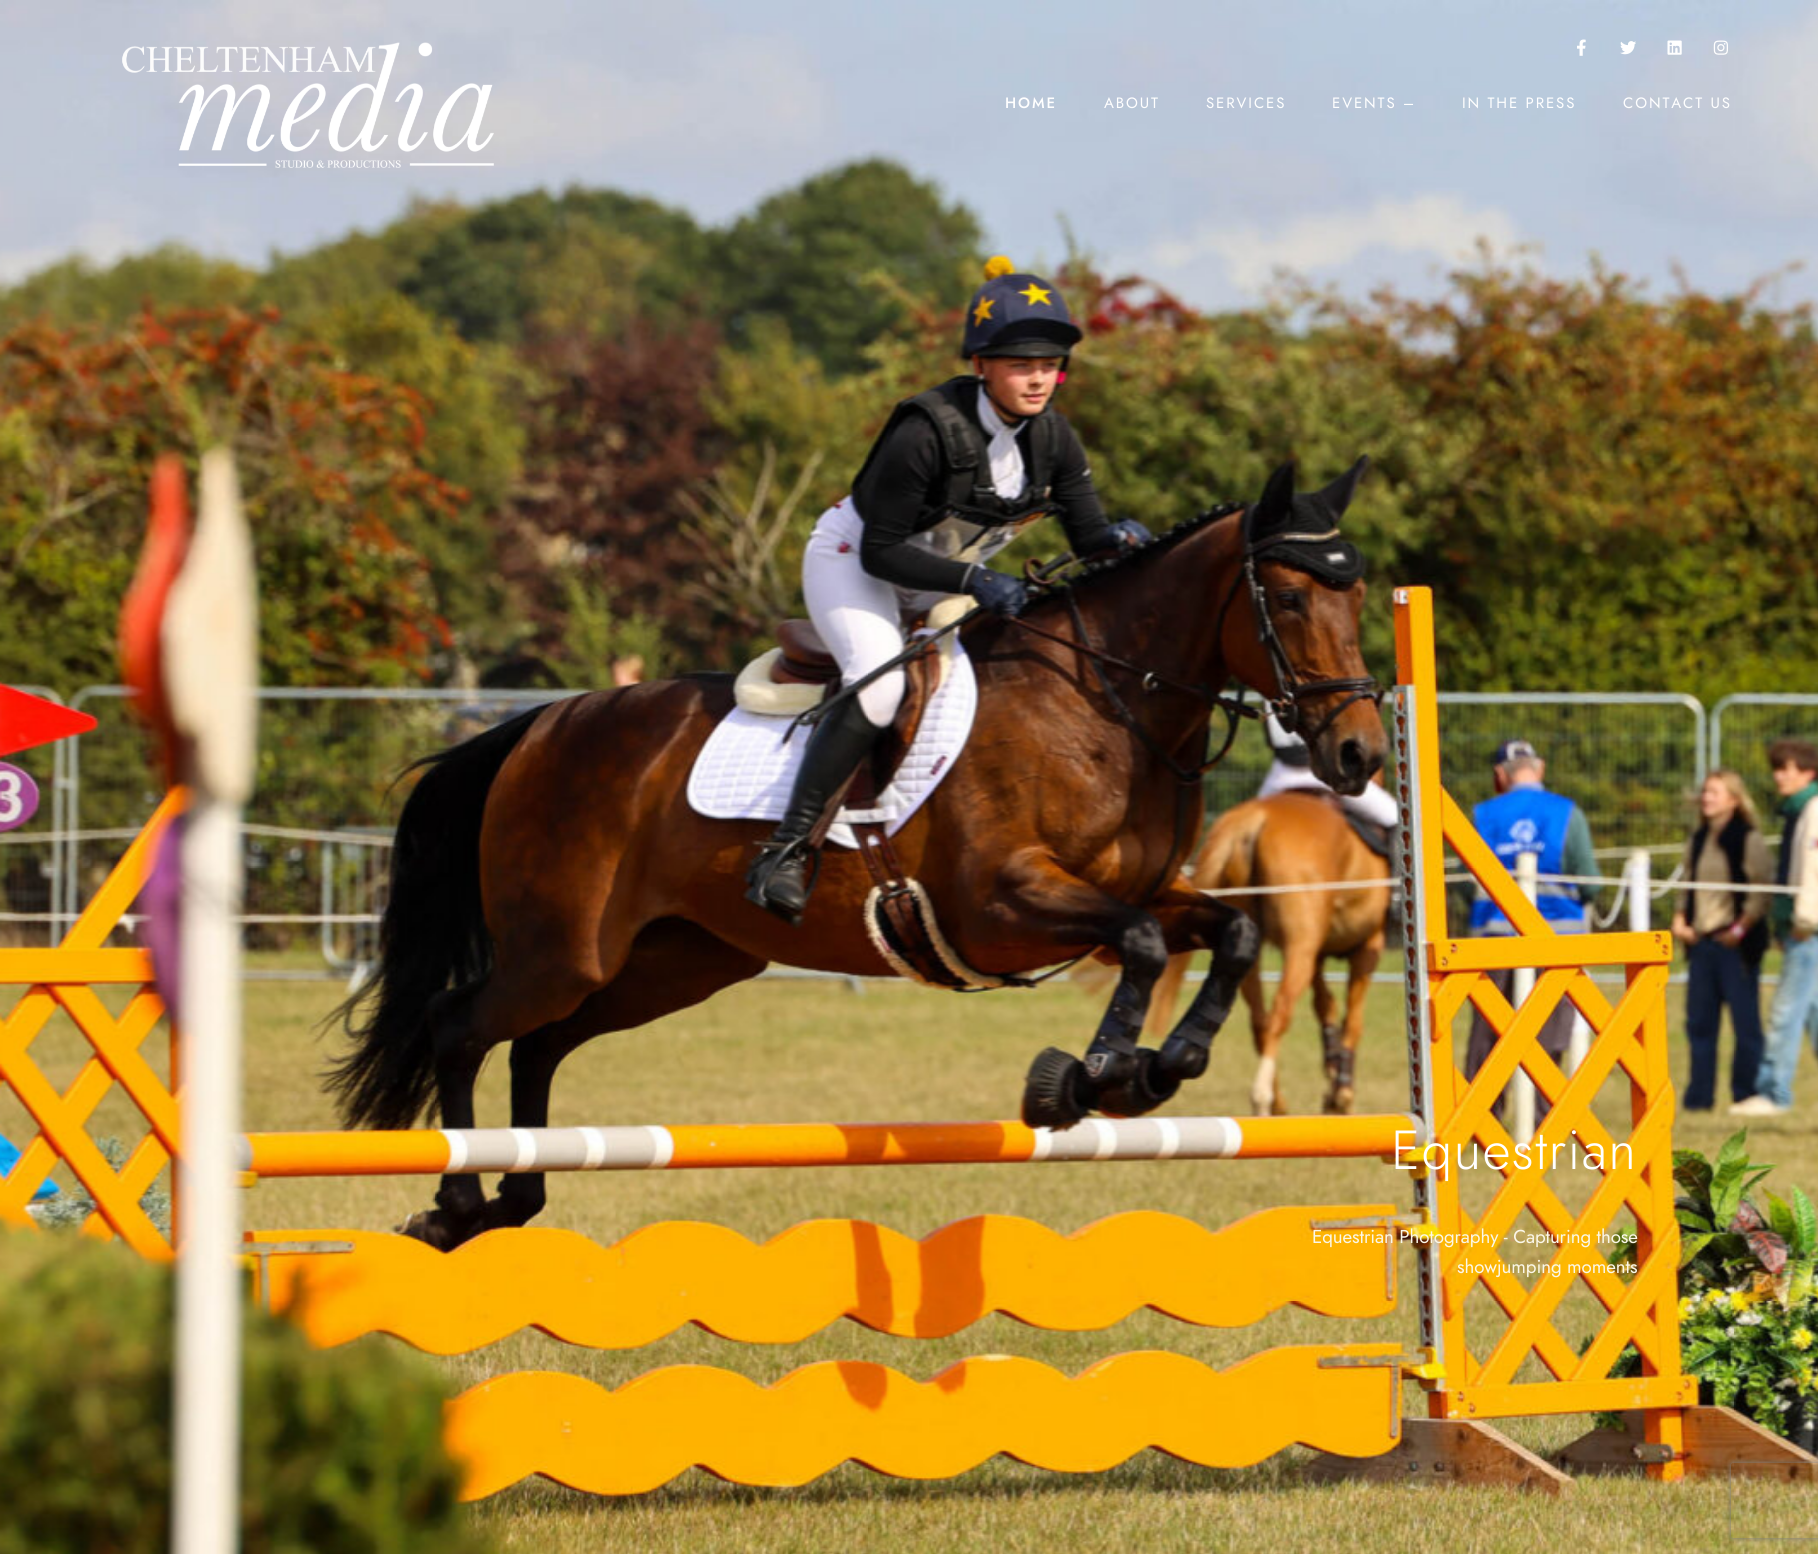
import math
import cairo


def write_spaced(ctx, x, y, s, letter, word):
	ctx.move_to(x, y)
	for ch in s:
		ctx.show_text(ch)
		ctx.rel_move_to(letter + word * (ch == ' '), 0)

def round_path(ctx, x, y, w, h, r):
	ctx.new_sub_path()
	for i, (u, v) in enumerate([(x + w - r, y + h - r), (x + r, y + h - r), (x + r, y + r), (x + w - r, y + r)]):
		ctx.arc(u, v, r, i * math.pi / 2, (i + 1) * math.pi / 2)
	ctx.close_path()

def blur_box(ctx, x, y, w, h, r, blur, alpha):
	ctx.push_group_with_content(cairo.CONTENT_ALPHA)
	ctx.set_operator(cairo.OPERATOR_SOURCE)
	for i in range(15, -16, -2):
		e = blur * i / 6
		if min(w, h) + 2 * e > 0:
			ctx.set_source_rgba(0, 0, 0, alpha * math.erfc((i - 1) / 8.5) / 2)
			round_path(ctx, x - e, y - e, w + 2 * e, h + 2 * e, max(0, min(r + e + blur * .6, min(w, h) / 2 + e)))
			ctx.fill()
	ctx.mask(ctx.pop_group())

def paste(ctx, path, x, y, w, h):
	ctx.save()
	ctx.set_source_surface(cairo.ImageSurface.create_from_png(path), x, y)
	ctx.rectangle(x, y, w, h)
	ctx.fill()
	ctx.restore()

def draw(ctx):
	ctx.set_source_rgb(1, 1, 1)
	ctx.paint()
	paste(ctx, 'media/1.png', 0, 0, 1818, 1554)
	paste(ctx, 'media/2.png', 1577, 39, 9, 17)
	paste(ctx, 'media/3.png', 1620, 41, 16, 14)
	paste(ctx, 'media/4.png', 1667, 40, 15, 15)
	paste(ctx, 'media/5.png', 1713, 40, 15, 15)
	paste(ctx, 'media/6.png', 122, 42, 372, 126)
	ctx.select_font_face('Jost Medium')
	ctx.set_font_size(15)
	ctx.set_source_rgb(1, 1, 1)
	write_spaced(ctx, 1005, 108, 'HOME', 1.9, 0)
	ctx.select_font_face('Jost')
	for x, y, s in [
		(1104, 108, 'ABOUT'),
		(1206, 108, 'SERVICES'),
		(1332, 108, 'EVENTS –'),
		(1462, 108, 'IN THE PRESS'),
		(1623, 108, 'CONTACT US'),
	]:
		write_spaced(ctx, x, y, s, 1.9, 0)
	ctx.select_font_face('Jost Light')
	ctx.set_font_size(55)
	write_spaced(ctx, 1391, 1169, 'Equestrian', 1.25, 0)
	ctx.select_font_face('Jost')
	ctx.set_font_size(18.75)
	ctx.set_source_rgb(0.984, 0.965, 0.91)
	write_spaced(ctx, 1312, 1243, 'Equestrian Photography - Capturing those', -0.1, 0)
	write_spaced(ctx, 1457, 1273, 'showjumping moments', -0.1, 0)
	ctx.save()
	ctx.set_fill_rule(cairo.FILL_RULE_EVEN_ODD)
	ctx.new_path()
	ctx.move_to(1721, 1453)
	ctx.line_to(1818, 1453)
	ctx.line_to(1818, 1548)
	ctx.line_to(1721, 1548)
	ctx.close_path()
	ctx.move_to(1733.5, 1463)
	ctx.line_to(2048.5, 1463)
	ctx.curve_to(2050, 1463, 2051, 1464, 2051, 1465.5)
	ctx.line_to(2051, 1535.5)
	ctx.curve_to(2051, 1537, 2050, 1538, 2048.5, 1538)
	ctx.line_to(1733.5, 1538)
	ctx.curve_to(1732, 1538, 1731, 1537, 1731, 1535.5)
	ctx.line_to(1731, 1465.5)
	ctx.curve_to(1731, 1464, 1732, 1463, 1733.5, 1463)
	ctx.close_path()
	ctx.clip()
	ctx.set_source_rgb(0.502, 0.502, 0.502)
	blur_box(ctx, 1731, 1463, 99, 75, 2.5, 3, 1)
	ctx.restore()


surface = cairo.ImageSurface(cairo.FORMAT_RGB24, 1818, 1554)
ctx = cairo.Context(surface)
options = cairo.FontOptions()
options.set_hint_metrics(cairo.HINT_METRICS_OFF)
options.set_hint_style(cairo.HINT_STYLE_NONE)
ctx.set_font_options(options)
ctx.set_miter_limit(4)
draw(ctx)
surface.write_to_png('image.png')
